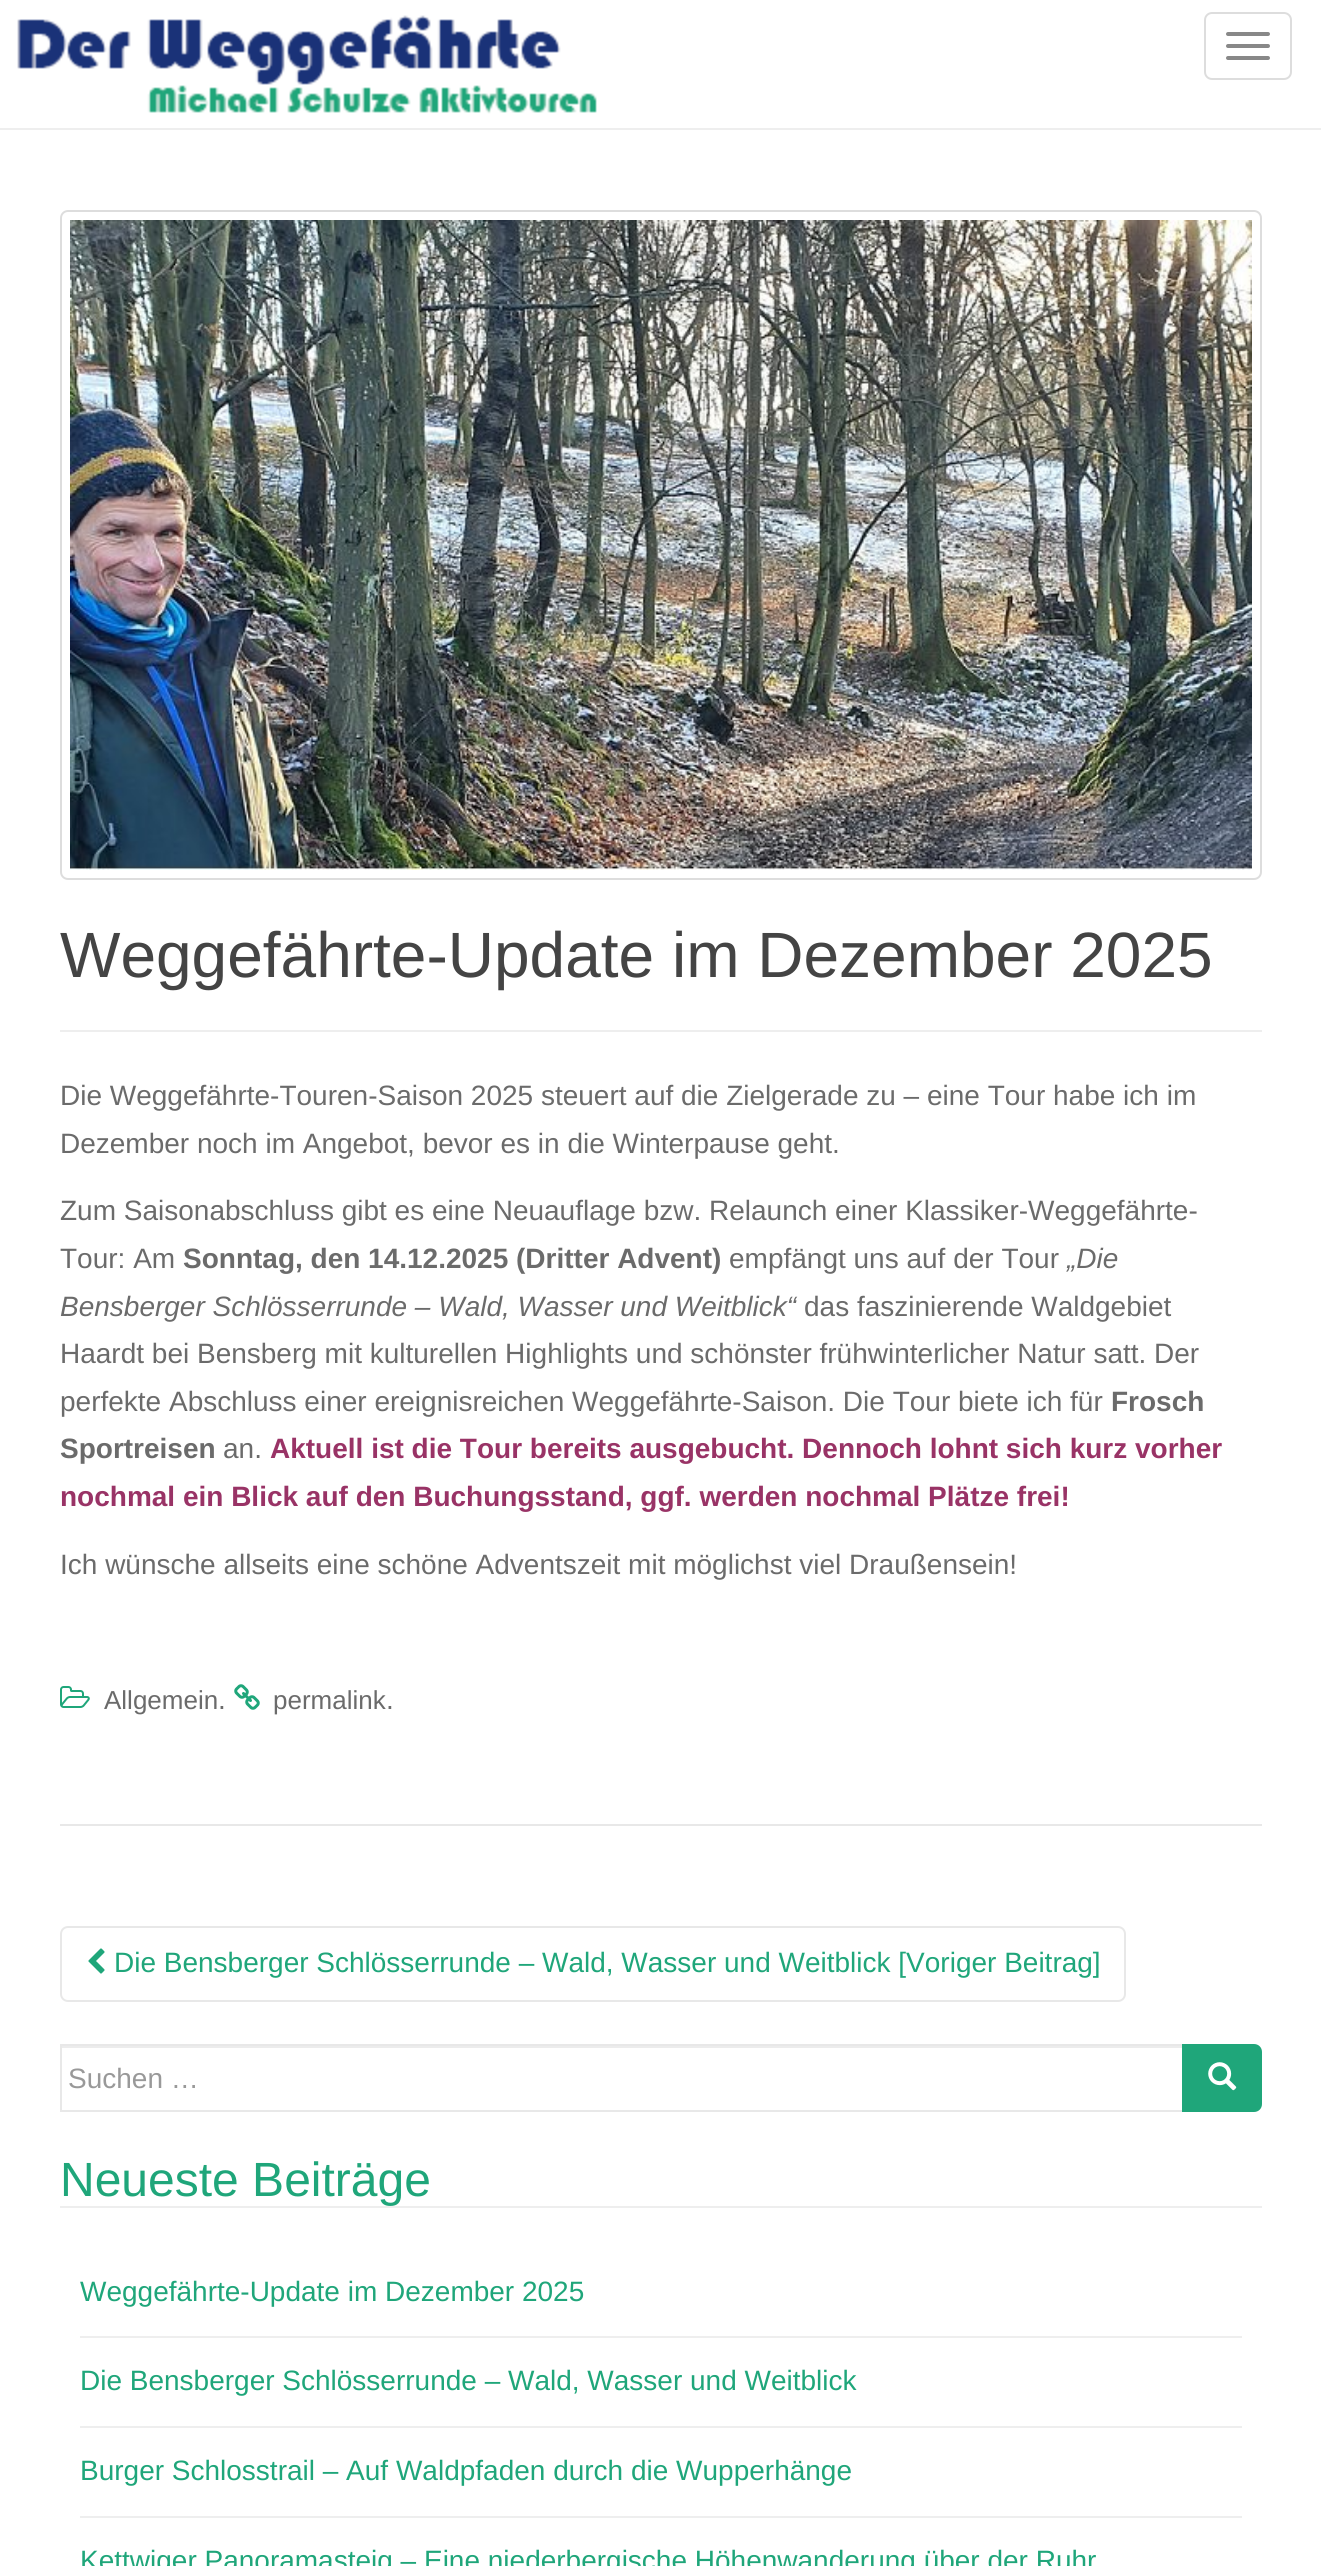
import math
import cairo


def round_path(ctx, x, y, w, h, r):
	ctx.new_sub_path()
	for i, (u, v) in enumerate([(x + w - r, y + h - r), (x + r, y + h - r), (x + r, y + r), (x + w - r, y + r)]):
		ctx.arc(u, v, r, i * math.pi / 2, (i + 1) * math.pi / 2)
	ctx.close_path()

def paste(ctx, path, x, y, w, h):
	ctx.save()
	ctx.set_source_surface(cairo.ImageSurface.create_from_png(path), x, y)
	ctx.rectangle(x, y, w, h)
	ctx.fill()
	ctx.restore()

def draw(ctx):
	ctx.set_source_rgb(1, 1, 1)
	ctx.paint()
	ctx.set_source_rgb(0.933, 0.933, 0.933)
	ctx.rectangle(0, 128, 1321, 2)
	ctx.fill()
	paste(ctx, 'media/1.png', 17, 15, 580, 99)
	round_path(ctx, 1205, 13, 86, 66, 7)
	ctx.set_source_rgb(0.867, 0.867, 0.867)
	ctx.stroke()
	ctx.set_source_rgb(0.533, 0.533, 0.533)
	round_path(ctx, 1226, 32, 44, 4, 2)
	ctx.fill()
	round_path(ctx, 1226, 44, 44, 4, 2)
	ctx.fill()
	round_path(ctx, 1226, 56, 44, 4, 2)
	ctx.fill()
	ctx.set_source_rgb(0.933, 0.933, 0.933)
	ctx.rectangle(60, 1030, 1202, 2)
	ctx.fill()
	round_path(ctx, 61, 211, 1200, 668, 7)
	ctx.set_source_rgb(0.867, 0.867, 0.867)
	ctx.stroke()
	paste(ctx, 'media/2.png', 70, 220, 1182, 650)
	ctx.select_font_face('Liberation Sans')
	ctx.set_font_size(64)
	ctx.set_source_rgb(0.267, 0.267, 0.267)
	ctx.move_to(60, 977)
	ctx.show_text('Weggefährte-Update im Dezember 2025')
	ctx.set_font_size(28)
	ctx.set_source_rgb(0.42, 0.42, 0.42)
	for x, y, s in [
		(60, 1105, 'Die Weggefährte-Touren-Saison 2025 steuert auf die Zielgerade zu – eine Tour habe ich im'),
		(60, 1153, 'Dezember noch im Angebot, bevor es in die Winterpause geht.'),
		(60, 1220, 'Zum Saisonabschluss gibt es eine Neuauflage bzw. Relaunch einer Klassiker-Weggefährte-'),
		(60, 1268, 'Tour: Am'),
	]:
		ctx.move_to(x, y)
		ctx.show_text(s)
	ctx.select_font_face('Liberation Sans', cairo.FONT_SLANT_NORMAL, cairo.FONT_WEIGHT_BOLD)
	ctx.move_to(183, 1268)
	ctx.show_text('Sonntag, den 14.12.2025 (Dritter Advent)')
	ctx.select_font_face('Liberation Sans')
	ctx.move_to(729, 1268)
	ctx.show_text('empfängt uns auf der Tour')
	ctx.select_font_face('Liberation Sans', cairo.FONT_SLANT_ITALIC)
	ctx.move_to(1067, 1268)
	ctx.show_text('„Die')
	ctx.move_to(60, 1316)
	ctx.show_text('Bensberger Schlösserrunde – Wald, Wasser und Weitblick“')
	ctx.select_font_face('Liberation Sans')
	for x, y, s in [
		(804, 1316, 'das faszinierende Waldgebiet'),
		(60, 1363, 'Haardt bei Bensberg mit kulturellen Highlights und schönster frühwinterlicher Natur satt. Der'),
		(60, 1411, 'perfekte Abschluss einer ereignisreichen Weggefährte-Saison. Die Tour biete ich für'),
	]:
		ctx.move_to(x, y)
		ctx.show_text(s)
	ctx.select_font_face('Liberation Sans', cairo.FONT_SLANT_NORMAL, cairo.FONT_WEIGHT_BOLD)
	ctx.move_to(1111, 1411)
	ctx.show_text('Frosch')
	ctx.move_to(60, 1458)
	ctx.show_text('Sportreisen')
	ctx.select_font_face('Liberation Sans')
	ctx.move_to(223, 1458)
	ctx.show_text('an.')
	ctx.select_font_face('Liberation Sans', cairo.FONT_SLANT_NORMAL, cairo.FONT_WEIGHT_BOLD)
	ctx.set_source_rgb(0.6, 0.2, 0.4)
	ctx.move_to(270, 1458)
	ctx.show_text('Aktuell ist die Tour bereits ausgebucht. Dennoch lohnt sich kurz vorher')
	ctx.move_to(60, 1506)
	ctx.show_text('nochmal ein Blick auf den Buchungsstand, ggf. werden nochmal Plätze frei!')
	ctx.select_font_face('Liberation Sans')
	ctx.set_source_rgb(0.42, 0.42, 0.42)
	ctx.move_to(60, 1574)
	ctx.show_text('Ich wünsche allseits eine schöne Adventszeit mit möglichst viel Draußensein!')
	paste(ctx, 'media/3.png', 60, 1686, 30, 22)
	ctx.set_font_size(26)
	ctx.move_to(104, 1709)
	ctx.show_text('Allgemein')
	ctx.set_font_size(28)
	ctx.move_to(218, 1709)
	ctx.show_text('.')
	paste(ctx, 'media/4.png', 234, 1684, 26, 26)
	ctx.set_font_size(26)
	ctx.move_to(273, 1709)
	ctx.show_text('permalink')
	ctx.set_font_size(28)
	ctx.move_to(386, 1709)
	ctx.show_text('.')
	ctx.set_source_rgb(0.91, 0.91, 0.91)
	ctx.rectangle(60, 1824, 1202, 2)
	ctx.fill()
	round_path(ctx, 61, 1927, 1064, 74, 7)
	ctx.stroke()
	paste(ctx, 'media/5.png', 88, 1948, 17, 26)
	ctx.set_source_rgb(0.122, 0.651, 0.478)
	ctx.move_to(114, 1972)
	ctx.show_text('Die Bensberger Schlösserrunde – Wald, Wasser und Weitblick [Voriger Beitrag]')
	ctx.set_source_rgb(0.925, 0.925, 0.925)
	ctx.rectangle(62, 2046, 1120, 2)
	ctx.fill()
	ctx.rectangle(61, 2045, 1122, 66)
	ctx.set_source_rgb(0.91, 0.91, 0.91)
	ctx.stroke()
	ctx.set_source_rgb(0.6, 0.6, 0.6)
	ctx.move_to(68, 2088)
	ctx.show_text('Suchen …')
	ctx.set_source_rgb(0.122, 0.651, 0.478)
	ctx.new_path()
	ctx.move_to(1183, 2045)
	ctx.line_to(1254, 2045)
	ctx.curve_to(1258, 2045, 1261, 2048, 1261, 2052)
	ctx.line_to(1261, 2104)
	ctx.curve_to(1261, 2108, 1258, 2111, 1254, 2111)
	ctx.line_to(1183, 2111)
	ctx.close_path()
	ctx.fill_preserve()
	ctx.stroke()
	paste(ctx, 'media/6.png', 1208, 2062, 29, 29)
	ctx.set_source_rgb(0.933, 0.933, 0.933)
	ctx.rectangle(60, 2206, 1202, 2)
	ctx.fill()
	ctx.set_font_size(48)
	ctx.set_source_rgb(0.122, 0.651, 0.478)
	ctx.move_to(60, 2196)
	ctx.show_text('Neueste Beiträge')
	ctx.set_source_rgb(0.933, 0.933, 0.933)
	ctx.rectangle(80, 2336, 1162, 2)
	ctx.fill()
	ctx.set_font_size(28)
	ctx.set_source_rgb(0.122, 0.651, 0.478)
	ctx.move_to(80, 2301)
	ctx.show_text('Weggefährte-Update im Dezember 2025')
	ctx.set_source_rgb(0.933, 0.933, 0.933)
	ctx.rectangle(80, 2426, 1162, 2)
	ctx.fill()
	ctx.set_source_rgb(0.122, 0.651, 0.478)
	ctx.move_to(80, 2390)
	ctx.show_text('Die Bensberger Schlösserrunde – Wald, Wasser und Weitblick')
	ctx.set_source_rgb(0.933, 0.933, 0.933)
	ctx.rectangle(80, 2516, 1162, 2)
	ctx.fill()
	ctx.set_source_rgb(0.122, 0.651, 0.478)
	ctx.move_to(80, 2480)
	ctx.show_text('Burger Schlosstrail – Auf Waldpfaden durch die Wupperhänge')
	ctx.move_to(80, 2570)
	ctx.show_text('Kettwiger Panoramasteig – Eine niederbergische Höhenwanderung über der Ruhr')


surface = cairo.ImageSurface(cairo.FORMAT_RGB24, 1321, 2566)
ctx = cairo.Context(surface)
options = cairo.FontOptions()
options.set_hint_metrics(cairo.HINT_METRICS_OFF)
options.set_hint_style(cairo.HINT_STYLE_NONE)
ctx.set_font_options(options)
ctx.set_miter_limit(4)
draw(ctx)
surface.write_to_png('image.png')
